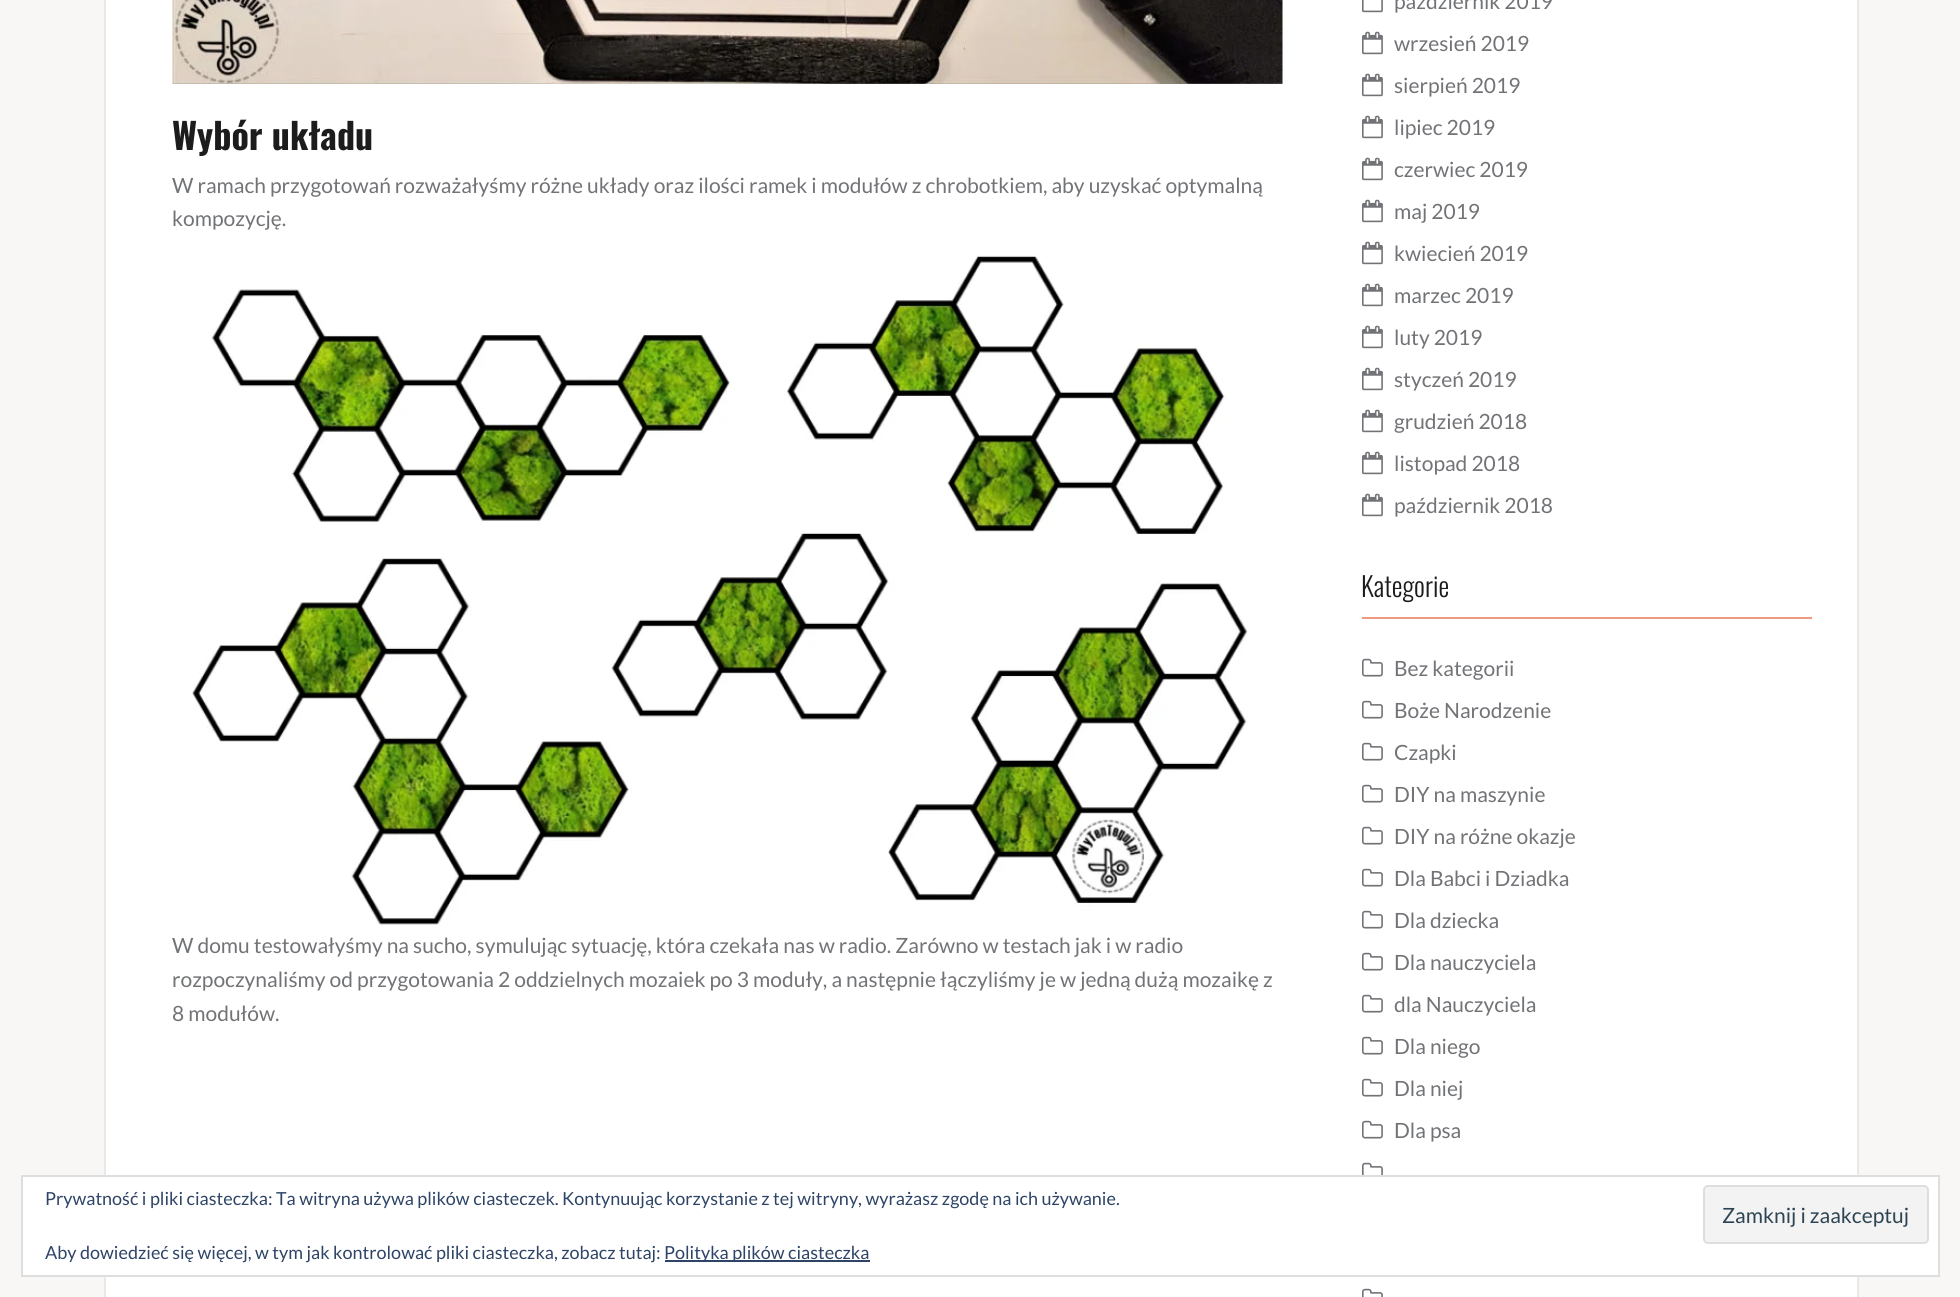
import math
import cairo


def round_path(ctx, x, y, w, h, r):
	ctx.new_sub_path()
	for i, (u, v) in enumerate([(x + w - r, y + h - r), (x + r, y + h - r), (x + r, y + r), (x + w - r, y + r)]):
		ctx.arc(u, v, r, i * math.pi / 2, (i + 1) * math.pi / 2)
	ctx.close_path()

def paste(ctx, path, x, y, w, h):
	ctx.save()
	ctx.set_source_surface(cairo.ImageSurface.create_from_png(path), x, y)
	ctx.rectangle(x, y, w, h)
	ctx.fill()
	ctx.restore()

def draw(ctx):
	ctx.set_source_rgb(0.976, 0.965, 0.961)
	ctx.paint()
	ctx.set_source_rgb(1, 1, 1)
	ctx.rectangle(105, -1, 1753, 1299)
	ctx.fill_preserve()
	ctx.set_source_rgb(0.91, 0.91, 0.91)
	ctx.stroke()
	paste(ctx, 'media/1.png', 172, 0, 1111, 84)
	ctx.select_font_face('Oswald', cairo.FONT_SLANT_NORMAL, cairo.FONT_WEIGHT_BOLD)
	ctx.set_font_size(36)
	ctx.set_source_rgb(0.11, 0.11, 0.11)
	ctx.move_to(172, 150)
	ctx.show_text('Wybór układu')
	ctx.select_font_face('Lato')
	ctx.set_font_size(21)
	ctx.set_source_rgb(0.443, 0.451, 0.463)
	ctx.move_to(172, 193)
	ctx.show_text('W ramach przygotowań rozważałyśmy różne układy oraz ilości ramek i modułów z chrobotkiem, aby uzyskać optymalną')
	ctx.move_to(172, 226)
	ctx.show_text('kompozycję.')
	paste(ctx, 'media/2.png', 192, 255, 1056, 670)
	for x, y, s in [
		(172, 953, 'W domu testowałyśmy na sucho, symulując sytuację, która czekała nas w radio. Zarówno w testach jak i w radio'),
		(172, 987, 'rozpoczynaliśmy od przygotowania 2 oddzielnych mozaiek po 3 moduły, a następnie łączyliśmy je w jedną dużą mozaikę z'),
		(172, 1021, '8 modułów.'),
	]:
		ctx.move_to(x, y)
		ctx.show_text(s)
	paste(ctx, 'media/3.png', 1362, 0, 21, 13)
	ctx.move_to(1394, 9)
	ctx.show_text('październik 2019')
	paste(ctx, 'media/4.png', 1362, 31, 21, 24)
	ctx.move_to(1394, 51)
	ctx.show_text('wrzesień 2019')
	paste(ctx, 'media/4.png', 1362, 73, 21, 24)
	ctx.move_to(1394, 93)
	ctx.show_text('sierpień 2019')
	paste(ctx, 'media/4.png', 1362, 115, 21, 24)
	ctx.move_to(1394, 135)
	ctx.show_text('lipiec 2019')
	paste(ctx, 'media/4.png', 1362, 157, 21, 24)
	ctx.move_to(1394, 177)
	ctx.show_text('czerwiec 2019')
	paste(ctx, 'media/4.png', 1362, 199, 21, 24)
	ctx.move_to(1394, 219)
	ctx.show_text('maj 2019')
	paste(ctx, 'media/4.png', 1362, 241, 21, 24)
	ctx.move_to(1394, 261)
	ctx.show_text('kwiecień 2019')
	paste(ctx, 'media/4.png', 1362, 283, 21, 24)
	ctx.move_to(1394, 303)
	ctx.show_text('marzec 2019')
	paste(ctx, 'media/4.png', 1362, 325, 21, 24)
	ctx.move_to(1394, 345)
	ctx.show_text('luty 2019')
	paste(ctx, 'media/4.png', 1362, 367, 21, 24)
	ctx.move_to(1394, 387)
	ctx.show_text('styczeń 2019')
	paste(ctx, 'media/4.png', 1362, 409, 21, 24)
	ctx.move_to(1394, 429)
	ctx.show_text('grudzień 2018')
	paste(ctx, 'media/4.png', 1362, 451, 21, 24)
	ctx.move_to(1394, 471)
	ctx.show_text('listopad 2018')
	paste(ctx, 'media/4.png', 1362, 493, 21, 24)
	ctx.move_to(1394, 513)
	ctx.show_text('październik 2018')
	ctx.set_source_rgb(0.937, 0.6, 0.498)
	ctx.rectangle(1362, 617, 450, 2)
	ctx.fill()
	ctx.select_font_face('Oswald Light')
	ctx.set_font_size(27)
	ctx.set_source_rgb(0.11, 0.11, 0.11)
	ctx.move_to(1361, 597)
	ctx.show_text('Kategorie')
	paste(ctx, 'media/5.png', 1362, 658, 21, 19)
	ctx.select_font_face('Lato')
	ctx.set_font_size(21)
	ctx.set_source_rgb(0.443, 0.451, 0.463)
	ctx.move_to(1394, 676)
	ctx.show_text('Bez kategorii')
	paste(ctx, 'media/5.png', 1362, 700, 21, 19)
	ctx.move_to(1394, 718)
	ctx.show_text('Boże Narodzenie')
	paste(ctx, 'media/5.png', 1362, 742, 21, 19)
	ctx.move_to(1394, 760)
	ctx.show_text('Czapki')
	paste(ctx, 'media/5.png', 1362, 784, 21, 19)
	ctx.move_to(1394, 802)
	ctx.show_text('DIY na maszynie')
	paste(ctx, 'media/5.png', 1362, 826, 21, 19)
	ctx.move_to(1394, 844)
	ctx.show_text('DIY na różne okazje')
	paste(ctx, 'media/5.png', 1362, 868, 21, 19)
	ctx.move_to(1394, 886)
	ctx.show_text('Dla Babci i Dziadka')
	paste(ctx, 'media/5.png', 1362, 910, 21, 19)
	ctx.move_to(1394, 928)
	ctx.show_text('Dla dziecka')
	paste(ctx, 'media/5.png', 1362, 952, 21, 19)
	ctx.move_to(1394, 970)
	ctx.show_text('Dla nauczyciela')
	paste(ctx, 'media/5.png', 1362, 994, 21, 19)
	ctx.move_to(1394, 1012)
	ctx.show_text('dla Nauczyciela')
	paste(ctx, 'media/5.png', 1362, 1036, 21, 19)
	ctx.move_to(1394, 1054)
	ctx.show_text('Dla niego')
	paste(ctx, 'media/5.png', 1362, 1078, 21, 19)
	ctx.move_to(1394, 1096)
	ctx.show_text('Dla niej')
	paste(ctx, 'media/5.png', 1362, 1120, 21, 19)
	ctx.move_to(1394, 1138)
	ctx.show_text('Dla psa')
	paste(ctx, 'media/6.png', 1362, 1162, 21, 13)
	paste(ctx, 'media/7.png', 1362, 1288, 21, 9)
	ctx.set_source_rgb(1, 1, 1)
	ctx.rectangle(22, 1176, 1917, 100)
	ctx.fill_preserve()
	ctx.set_source_rgb(0.871, 0.871, 0.871)
	ctx.stroke()
	ctx.set_font_size(18)
	ctx.set_source_rgb(0.18, 0.267, 0.404)
	ctx.move_to(45, 1205)
	ctx.show_text('Prywatność i pliki ciasteczka: Ta witryna używa plików ciasteczek. Kontynuując korzystanie z tej witryny, wyrażasz zgodę na ich używanie.')
	ctx.set_source_rgb(0.953, 0.953, 0.953)
	round_path(ctx, 1704, 1186, 224, 57, 4)
	ctx.fill_preserve()
	ctx.set_source_rgb(0.871, 0.871, 0.871)
	ctx.stroke()
	ctx.set_font_size(21)
	ctx.set_source_rgb(0.18, 0.267, 0.325)
	ctx.move_to(1722, 1223)
	ctx.show_text('Zamknij i zaakceptuj')
	ctx.set_font_size(18)
	ctx.set_source_rgb(0.18, 0.267, 0.404)
	ctx.move_to(45, 1259)
	ctx.show_text('Aby dowiedzieć się więcej, w tym jak kontrolować pliki ciasteczka, zobacz tutaj:')
	ctx.rectangle(665, 1260, 205, 2)
	ctx.fill()
	ctx.move_to(664, 1259)
	ctx.show_text('Polityka plików ciasteczka')


surface = cairo.ImageSurface(cairo.FORMAT_RGB24, 1960, 1297)
ctx = cairo.Context(surface)
options = cairo.FontOptions()
options.set_hint_metrics(cairo.HINT_METRICS_OFF)
options.set_hint_style(cairo.HINT_STYLE_NONE)
ctx.set_font_options(options)
ctx.set_miter_limit(4)
draw(ctx)
surface.write_to_png('image.png')
